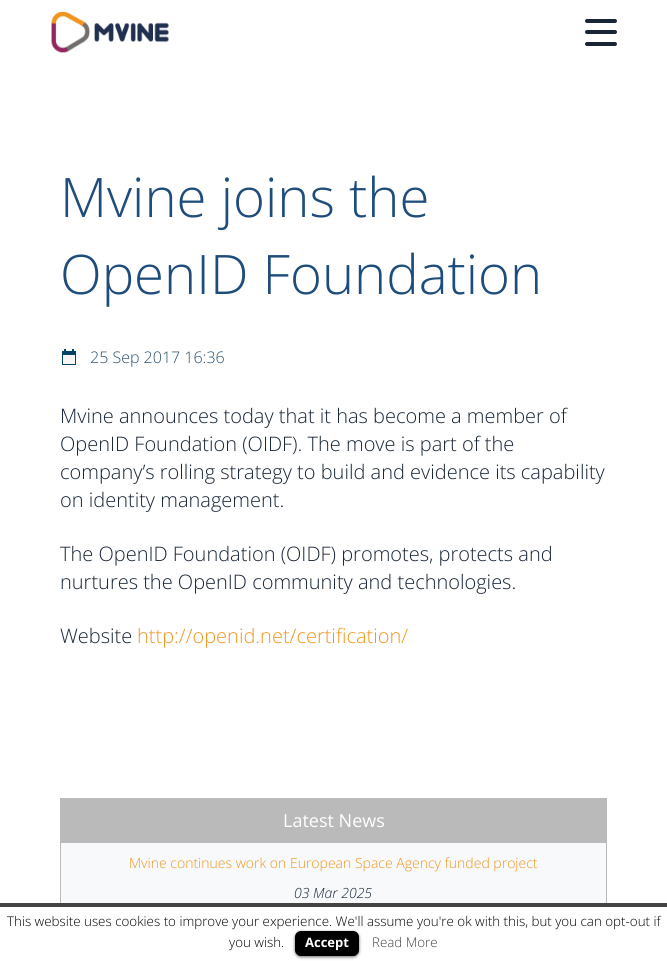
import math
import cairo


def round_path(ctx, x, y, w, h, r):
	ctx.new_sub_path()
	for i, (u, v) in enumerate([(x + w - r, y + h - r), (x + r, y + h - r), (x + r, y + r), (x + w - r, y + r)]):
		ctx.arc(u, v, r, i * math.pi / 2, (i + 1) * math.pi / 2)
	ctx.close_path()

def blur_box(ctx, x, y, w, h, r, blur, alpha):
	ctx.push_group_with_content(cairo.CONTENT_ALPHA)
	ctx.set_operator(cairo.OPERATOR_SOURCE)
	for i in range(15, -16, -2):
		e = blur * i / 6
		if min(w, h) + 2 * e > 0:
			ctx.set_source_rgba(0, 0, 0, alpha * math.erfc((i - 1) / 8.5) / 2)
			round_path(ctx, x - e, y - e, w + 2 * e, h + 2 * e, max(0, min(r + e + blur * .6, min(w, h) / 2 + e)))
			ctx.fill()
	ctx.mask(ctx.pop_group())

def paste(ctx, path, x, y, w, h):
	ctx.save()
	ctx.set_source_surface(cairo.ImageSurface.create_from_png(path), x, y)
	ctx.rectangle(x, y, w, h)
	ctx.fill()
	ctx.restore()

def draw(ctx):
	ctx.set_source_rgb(1, 1, 1)
	ctx.paint()
	paste(ctx, 'media/1.png', 51, 11, 118, 42)
	ctx.set_source_rgb(0.09, 0.145, 0.212)
	round_path(ctx, 585, 19, 32, 4, 2)
	ctx.fill()
	round_path(ctx, 585, 30, 32, 4, 2)
	ctx.fill()
	round_path(ctx, 585, 42, 32, 4, 2)
	ctx.fill()
	ctx.select_font_face('Open Sans Light')
	ctx.set_font_size(54.5)
	ctx.set_source_rgb(0.118, 0.298, 0.482)
	ctx.move_to(60, 217)
	ctx.show_text('Mvine joins the')
	ctx.move_to(60, 294)
	ctx.show_text('OpenID Foundation')
	paste(ctx, 'media/2.png', 62, 349, 14, 16)
	ctx.set_font_size(16)
	ctx.set_source_rgb(0.161, 0.31, 0.427)
	ctx.move_to(90, 363)
	ctx.show_text('25 Sep 2017 16:36')
	ctx.set_font_size(20)
	ctx.set_source_rgb(0.09, 0.145, 0.212)
	for x, y, s in [
		(60, 423, 'Mvine announces today that it has become a member of'),
		(60, 451, 'OpenID Foundation (OIDF). The move is part of the'),
		(60, 479, 'company’s rolling strategy to build and evidence its capability'),
		(60, 507, 'on identity management.'),
		(60, 561, 'The OpenID Foundation (OIDF) promotes, protects and'),
		(60, 589, 'nurtures the OpenID community and technologies.'),
		(60, 643, 'Website'),
	]:
		ctx.move_to(x, y)
		ctx.show_text(s)
	ctx.set_source_rgb(0.945, 0.584, 0.125)
	ctx.move_to(137, 643)
	ctx.show_text('http://openid.net/certification/')
	ctx.set_source_rgb(0.729, 0.729, 0.729)
	ctx.rectangle(60, 798, 547, 45)
	ctx.fill()
	ctx.select_font_face('Open Sans')
	ctx.set_font_size(18)
	ctx.set_source_rgb(1, 1, 1)
	ctx.move_to(283, 827)
	ctx.show_text('Latest News')
	ctx.set_source_rgb(0.965, 0.976, 0.984)
	ctx.rectangle(61, 843, 545, 60)
	ctx.fill()
	ctx.set_source_rgb(0.729, 0.729, 0.729)
	ctx.rectangle(606, 843, 1, 60)
	ctx.rectangle(60, 843, 1, 60)
	ctx.fill()
	ctx.select_font_face('Open Sans Light')
	ctx.set_font_size(14)
	ctx.set_source_rgb(0.945, 0.584, 0.125)
	ctx.move_to(129, 868)
	ctx.show_text('Mvine continues work on European Space Agency funded project')
	ctx.select_font_face('Open Sans Light', cairo.FONT_SLANT_ITALIC)
	ctx.set_source_rgb(0.09, 0.145, 0.212)
	ctx.move_to(294, 898)
	ctx.show_text('03 Mar 2025')
	ctx.set_source_rgb(0.267, 0.267, 0.267)
	ctx.rectangle(0, 903, 667, 4)
	ctx.fill()
	ctx.select_font_face('Open Sans Light')
	ctx.set_font_size(13.35)
	ctx.set_source_rgb(0, 0, 0)
	ctx.move_to(7, 926)
	ctx.show_text('This website uses cookies to improve your experience. We\'ll assume you\'re ok with this, but you can opt-out if')
	ctx.move_to(229, 947)
	ctx.show_text('you wish.')
	ctx.set_source_rgb(0, 0, 0)
	blur_box(ctx, 295, 932, 64, 25, 6, 1.5, 0.6)
	ctx.set_source_rgb(0, 0, 0)
	round_path(ctx, 295, 931, 64, 25, 6)
	ctx.fill()
	ctx.set_source_rgba(0, 0, 0, 0.25)
	ctx.rectangle(298, 955, 58, 1)
	ctx.fill()
	ctx.select_font_face('Open Sans', cairo.FONT_SLANT_NORMAL, cairo.FONT_WEIGHT_BOLD)
	ctx.set_font_size(13)
	ctx.set_source_rgb(1, 1, 1)
	ctx.move_to(305, 947)
	ctx.show_text('Accept')
	ctx.select_font_face('Open Sans Light')
	ctx.set_font_size(13.35)
	ctx.set_source_rgb(0.267, 0.267, 0.267)
	ctx.move_to(372, 947)
	ctx.show_text('Read More')


surface = cairo.ImageSurface(cairo.FORMAT_RGB24, 667, 961)
ctx = cairo.Context(surface)
options = cairo.FontOptions()
options.set_hint_metrics(cairo.HINT_METRICS_OFF)
options.set_hint_style(cairo.HINT_STYLE_NONE)
ctx.set_font_options(options)
ctx.set_miter_limit(4)
draw(ctx)
surface.write_to_png('image.png')
